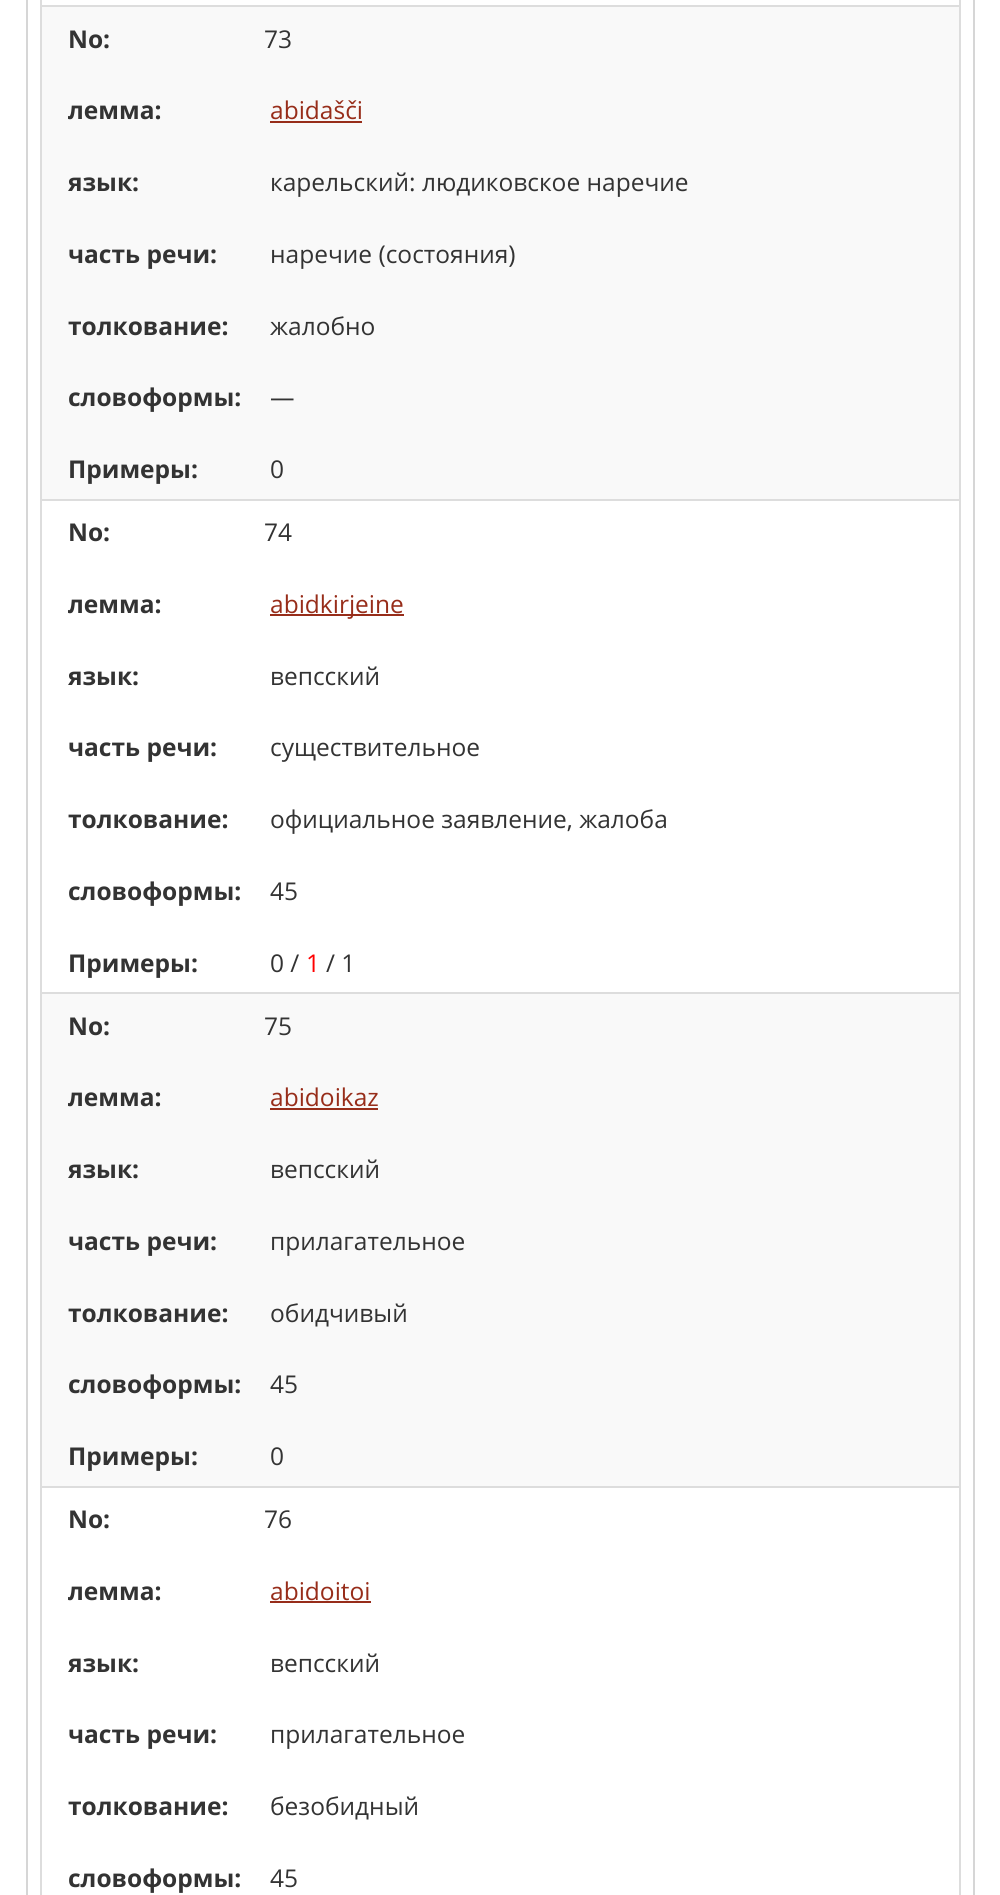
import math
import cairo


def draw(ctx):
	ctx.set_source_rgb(1, 1, 1)
	ctx.paint()
	ctx.rectangle(27, -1, 947, 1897)
	ctx.set_source_rgb(0.839, 0.839, 0.839)
	ctx.stroke()
	ctx.set_source_rgb(0.867, 0.867, 0.867)
	ctx.rectangle(959, 0, 2, 1895)
	ctx.rectangle(40, 0, 2, 1895)
	ctx.fill()
	ctx.set_source_rgb(0.976, 0.976, 0.976)
	ctx.rectangle(42, 7, 917, 492)
	ctx.fill()
	ctx.set_source_rgb(0.867, 0.867, 0.867)
	ctx.rectangle(42, 5, 917, 2)
	ctx.fill()
	ctx.select_font_face('Open Sans', cairo.FONT_SLANT_NORMAL, cairo.FONT_WEIGHT_BOLD)
	ctx.set_font_size(24.5)
	ctx.set_source_rgb(0.2, 0.2, 0.2)
	ctx.move_to(68, 48)
	ctx.show_text('No:')
	ctx.select_font_face('Open Sans')
	ctx.move_to(264, 48)
	ctx.show_text('73')
	ctx.select_font_face('Open Sans', cairo.FONT_SLANT_NORMAL, cairo.FONT_WEIGHT_BOLD)
	ctx.move_to(68, 119)
	ctx.show_text('лемма:')
	ctx.select_font_face('Open Sans')
	ctx.set_source_rgb(0.592, 0.176, 0.102)
	ctx.move_to(270, 119)
	ctx.show_text('abidašči')
	ctx.rectangle(270, 121, 92, 2)
	ctx.fill()
	ctx.select_font_face('Open Sans', cairo.FONT_SLANT_NORMAL, cairo.FONT_WEIGHT_BOLD)
	ctx.set_source_rgb(0.2, 0.2, 0.2)
	ctx.move_to(68, 191)
	ctx.show_text('язык:')
	ctx.select_font_face('Open Sans')
	ctx.move_to(270, 191)
	ctx.show_text('карельский: людиковское наречие')
	ctx.select_font_face('Open Sans', cairo.FONT_SLANT_NORMAL, cairo.FONT_WEIGHT_BOLD)
	ctx.move_to(68, 263)
	ctx.show_text('часть речи:')
	ctx.select_font_face('Open Sans')
	ctx.move_to(270, 263)
	ctx.show_text('наречие (состояния)')
	ctx.select_font_face('Open Sans', cairo.FONT_SLANT_NORMAL, cairo.FONT_WEIGHT_BOLD)
	ctx.move_to(68, 335)
	ctx.show_text('толкование:')
	ctx.select_font_face('Open Sans')
	ctx.move_to(270, 335)
	ctx.show_text('жалобно')
	ctx.select_font_face('Open Sans', cairo.FONT_SLANT_NORMAL, cairo.FONT_WEIGHT_BOLD)
	ctx.move_to(68, 406)
	ctx.show_text('словоформы:')
	ctx.select_font_face('Open Sans')
	ctx.move_to(270, 406)
	ctx.show_text('—')
	ctx.select_font_face('Open Sans', cairo.FONT_SLANT_NORMAL, cairo.FONT_WEIGHT_BOLD)
	ctx.move_to(68, 478)
	ctx.show_text('Примеры:')
	ctx.select_font_face('Open Sans')
	ctx.move_to(270, 478)
	ctx.show_text('0')
	ctx.set_source_rgb(0.867, 0.867, 0.867)
	ctx.rectangle(42, 499, 917, 2)
	ctx.fill()
	ctx.select_font_face('Open Sans', cairo.FONT_SLANT_NORMAL, cairo.FONT_WEIGHT_BOLD)
	ctx.set_source_rgb(0.2, 0.2, 0.2)
	ctx.move_to(68, 541)
	ctx.show_text('No:')
	ctx.select_font_face('Open Sans')
	ctx.move_to(264, 541)
	ctx.show_text('74')
	ctx.select_font_face('Open Sans', cairo.FONT_SLANT_NORMAL, cairo.FONT_WEIGHT_BOLD)
	ctx.move_to(68, 613)
	ctx.show_text('лемма:')
	ctx.set_source_rgb(0.592, 0.176, 0.102)
	ctx.rectangle(270, 614, 134, 2)
	ctx.fill()
	ctx.select_font_face('Open Sans')
	ctx.move_to(270, 613)
	ctx.show_text('abidkirjeine')
	ctx.select_font_face('Open Sans', cairo.FONT_SLANT_NORMAL, cairo.FONT_WEIGHT_BOLD)
	ctx.set_source_rgb(0.2, 0.2, 0.2)
	ctx.move_to(68, 685)
	ctx.show_text('язык:')
	ctx.select_font_face('Open Sans')
	ctx.move_to(270, 685)
	ctx.show_text('вепсский')
	ctx.select_font_face('Open Sans', cairo.FONT_SLANT_NORMAL, cairo.FONT_WEIGHT_BOLD)
	ctx.move_to(68, 756)
	ctx.show_text('часть речи:')
	ctx.select_font_face('Open Sans')
	ctx.move_to(270, 756)
	ctx.show_text('существительное')
	ctx.select_font_face('Open Sans', cairo.FONT_SLANT_NORMAL, cairo.FONT_WEIGHT_BOLD)
	ctx.move_to(68, 828)
	ctx.show_text('толкование:')
	ctx.select_font_face('Open Sans')
	ctx.move_to(270, 828)
	ctx.show_text('официальное заявление, жалоба')
	ctx.select_font_face('Open Sans', cairo.FONT_SLANT_NORMAL, cairo.FONT_WEIGHT_BOLD)
	ctx.move_to(68, 900)
	ctx.show_text('словоформы:')
	ctx.select_font_face('Open Sans')
	ctx.move_to(270, 900)
	ctx.show_text('45')
	ctx.select_font_face('Open Sans', cairo.FONT_SLANT_NORMAL, cairo.FONT_WEIGHT_BOLD)
	ctx.move_to(68, 972)
	ctx.show_text('Примеры:')
	ctx.select_font_face('Open Sans')
	ctx.move_to(270, 972)
	ctx.show_text('0 /')
	ctx.set_source_rgb(1, 0, 0)
	ctx.move_to(306, 972)
	ctx.show_text('1')
	ctx.set_source_rgb(0.2, 0.2, 0.2)
	ctx.move_to(326, 972)
	ctx.show_text('/ 1')
	ctx.set_source_rgb(0.976, 0.976, 0.976)
	ctx.rectangle(42, 994, 917, 492)
	ctx.fill()
	ctx.set_source_rgb(0.867, 0.867, 0.867)
	ctx.rectangle(42, 992, 917, 2)
	ctx.fill()
	ctx.select_font_face('Open Sans', cairo.FONT_SLANT_NORMAL, cairo.FONT_WEIGHT_BOLD)
	ctx.set_source_rgb(0.2, 0.2, 0.2)
	ctx.move_to(68, 1035)
	ctx.show_text('No:')
	ctx.select_font_face('Open Sans')
	ctx.move_to(264, 1035)
	ctx.show_text('75')
	ctx.select_font_face('Open Sans', cairo.FONT_SLANT_NORMAL, cairo.FONT_WEIGHT_BOLD)
	ctx.move_to(68, 1106)
	ctx.show_text('лемма:')
	ctx.select_font_face('Open Sans')
	ctx.set_source_rgb(0.592, 0.176, 0.102)
	ctx.move_to(270, 1106)
	ctx.show_text('abidoikaz')
	ctx.rectangle(270, 1108, 108, 2)
	ctx.fill()
	ctx.select_font_face('Open Sans', cairo.FONT_SLANT_NORMAL, cairo.FONT_WEIGHT_BOLD)
	ctx.set_source_rgb(0.2, 0.2, 0.2)
	ctx.move_to(68, 1178)
	ctx.show_text('язык:')
	ctx.select_font_face('Open Sans')
	ctx.move_to(270, 1178)
	ctx.show_text('вепсский')
	ctx.select_font_face('Open Sans', cairo.FONT_SLANT_NORMAL, cairo.FONT_WEIGHT_BOLD)
	ctx.move_to(68, 1250)
	ctx.show_text('часть речи:')
	ctx.select_font_face('Open Sans')
	ctx.move_to(270, 1250)
	ctx.show_text('прилагательное')
	ctx.select_font_face('Open Sans', cairo.FONT_SLANT_NORMAL, cairo.FONT_WEIGHT_BOLD)
	ctx.move_to(68, 1322)
	ctx.show_text('толкование:')
	ctx.select_font_face('Open Sans')
	ctx.move_to(270, 1322)
	ctx.show_text('обидчивый')
	ctx.select_font_face('Open Sans', cairo.FONT_SLANT_NORMAL, cairo.FONT_WEIGHT_BOLD)
	ctx.move_to(68, 1393)
	ctx.show_text('словоформы:')
	ctx.select_font_face('Open Sans')
	ctx.move_to(270, 1393)
	ctx.show_text('45')
	ctx.select_font_face('Open Sans', cairo.FONT_SLANT_NORMAL, cairo.FONT_WEIGHT_BOLD)
	ctx.move_to(68, 1465)
	ctx.show_text('Примеры:')
	ctx.select_font_face('Open Sans')
	ctx.move_to(270, 1465)
	ctx.show_text('0')
	ctx.set_source_rgb(0.867, 0.867, 0.867)
	ctx.rectangle(42, 1486, 917, 2)
	ctx.fill()
	ctx.select_font_face('Open Sans', cairo.FONT_SLANT_NORMAL, cairo.FONT_WEIGHT_BOLD)
	ctx.set_source_rgb(0.2, 0.2, 0.2)
	ctx.move_to(68, 1528)
	ctx.show_text('No:')
	ctx.select_font_face('Open Sans')
	ctx.move_to(264, 1528)
	ctx.show_text('76')
	ctx.select_font_face('Open Sans', cairo.FONT_SLANT_NORMAL, cairo.FONT_WEIGHT_BOLD)
	ctx.move_to(68, 1600)
	ctx.show_text('лемма:')
	ctx.select_font_face('Open Sans')
	ctx.set_source_rgb(0.592, 0.176, 0.102)
	ctx.move_to(270, 1600)
	ctx.show_text('abidoitoi')
	ctx.rectangle(270, 1601, 101, 2)
	ctx.fill()
	ctx.select_font_face('Open Sans', cairo.FONT_SLANT_NORMAL, cairo.FONT_WEIGHT_BOLD)
	ctx.set_source_rgb(0.2, 0.2, 0.2)
	ctx.move_to(68, 1672)
	ctx.show_text('язык:')
	ctx.select_font_face('Open Sans')
	ctx.move_to(270, 1672)
	ctx.show_text('вепсский')
	ctx.select_font_face('Open Sans', cairo.FONT_SLANT_NORMAL, cairo.FONT_WEIGHT_BOLD)
	ctx.move_to(68, 1743)
	ctx.show_text('часть речи:')
	ctx.select_font_face('Open Sans')
	ctx.move_to(270, 1743)
	ctx.show_text('прилагательное')
	ctx.select_font_face('Open Sans', cairo.FONT_SLANT_NORMAL, cairo.FONT_WEIGHT_BOLD)
	ctx.move_to(68, 1815)
	ctx.show_text('толкование:')
	ctx.select_font_face('Open Sans')
	ctx.move_to(270, 1815)
	ctx.show_text('безобидный')
	ctx.select_font_face('Open Sans', cairo.FONT_SLANT_NORMAL, cairo.FONT_WEIGHT_BOLD)
	ctx.move_to(68, 1887)
	ctx.show_text('словоформы:')
	ctx.select_font_face('Open Sans')
	ctx.move_to(270, 1887)
	ctx.show_text('45')


surface = cairo.ImageSurface(cairo.FORMAT_RGB24, 1000, 1895)
ctx = cairo.Context(surface)
options = cairo.FontOptions()
options.set_hint_metrics(cairo.HINT_METRICS_OFF)
options.set_hint_style(cairo.HINT_STYLE_NONE)
ctx.set_font_options(options)
ctx.set_miter_limit(4)
draw(ctx)
surface.write_to_png('image.png')
